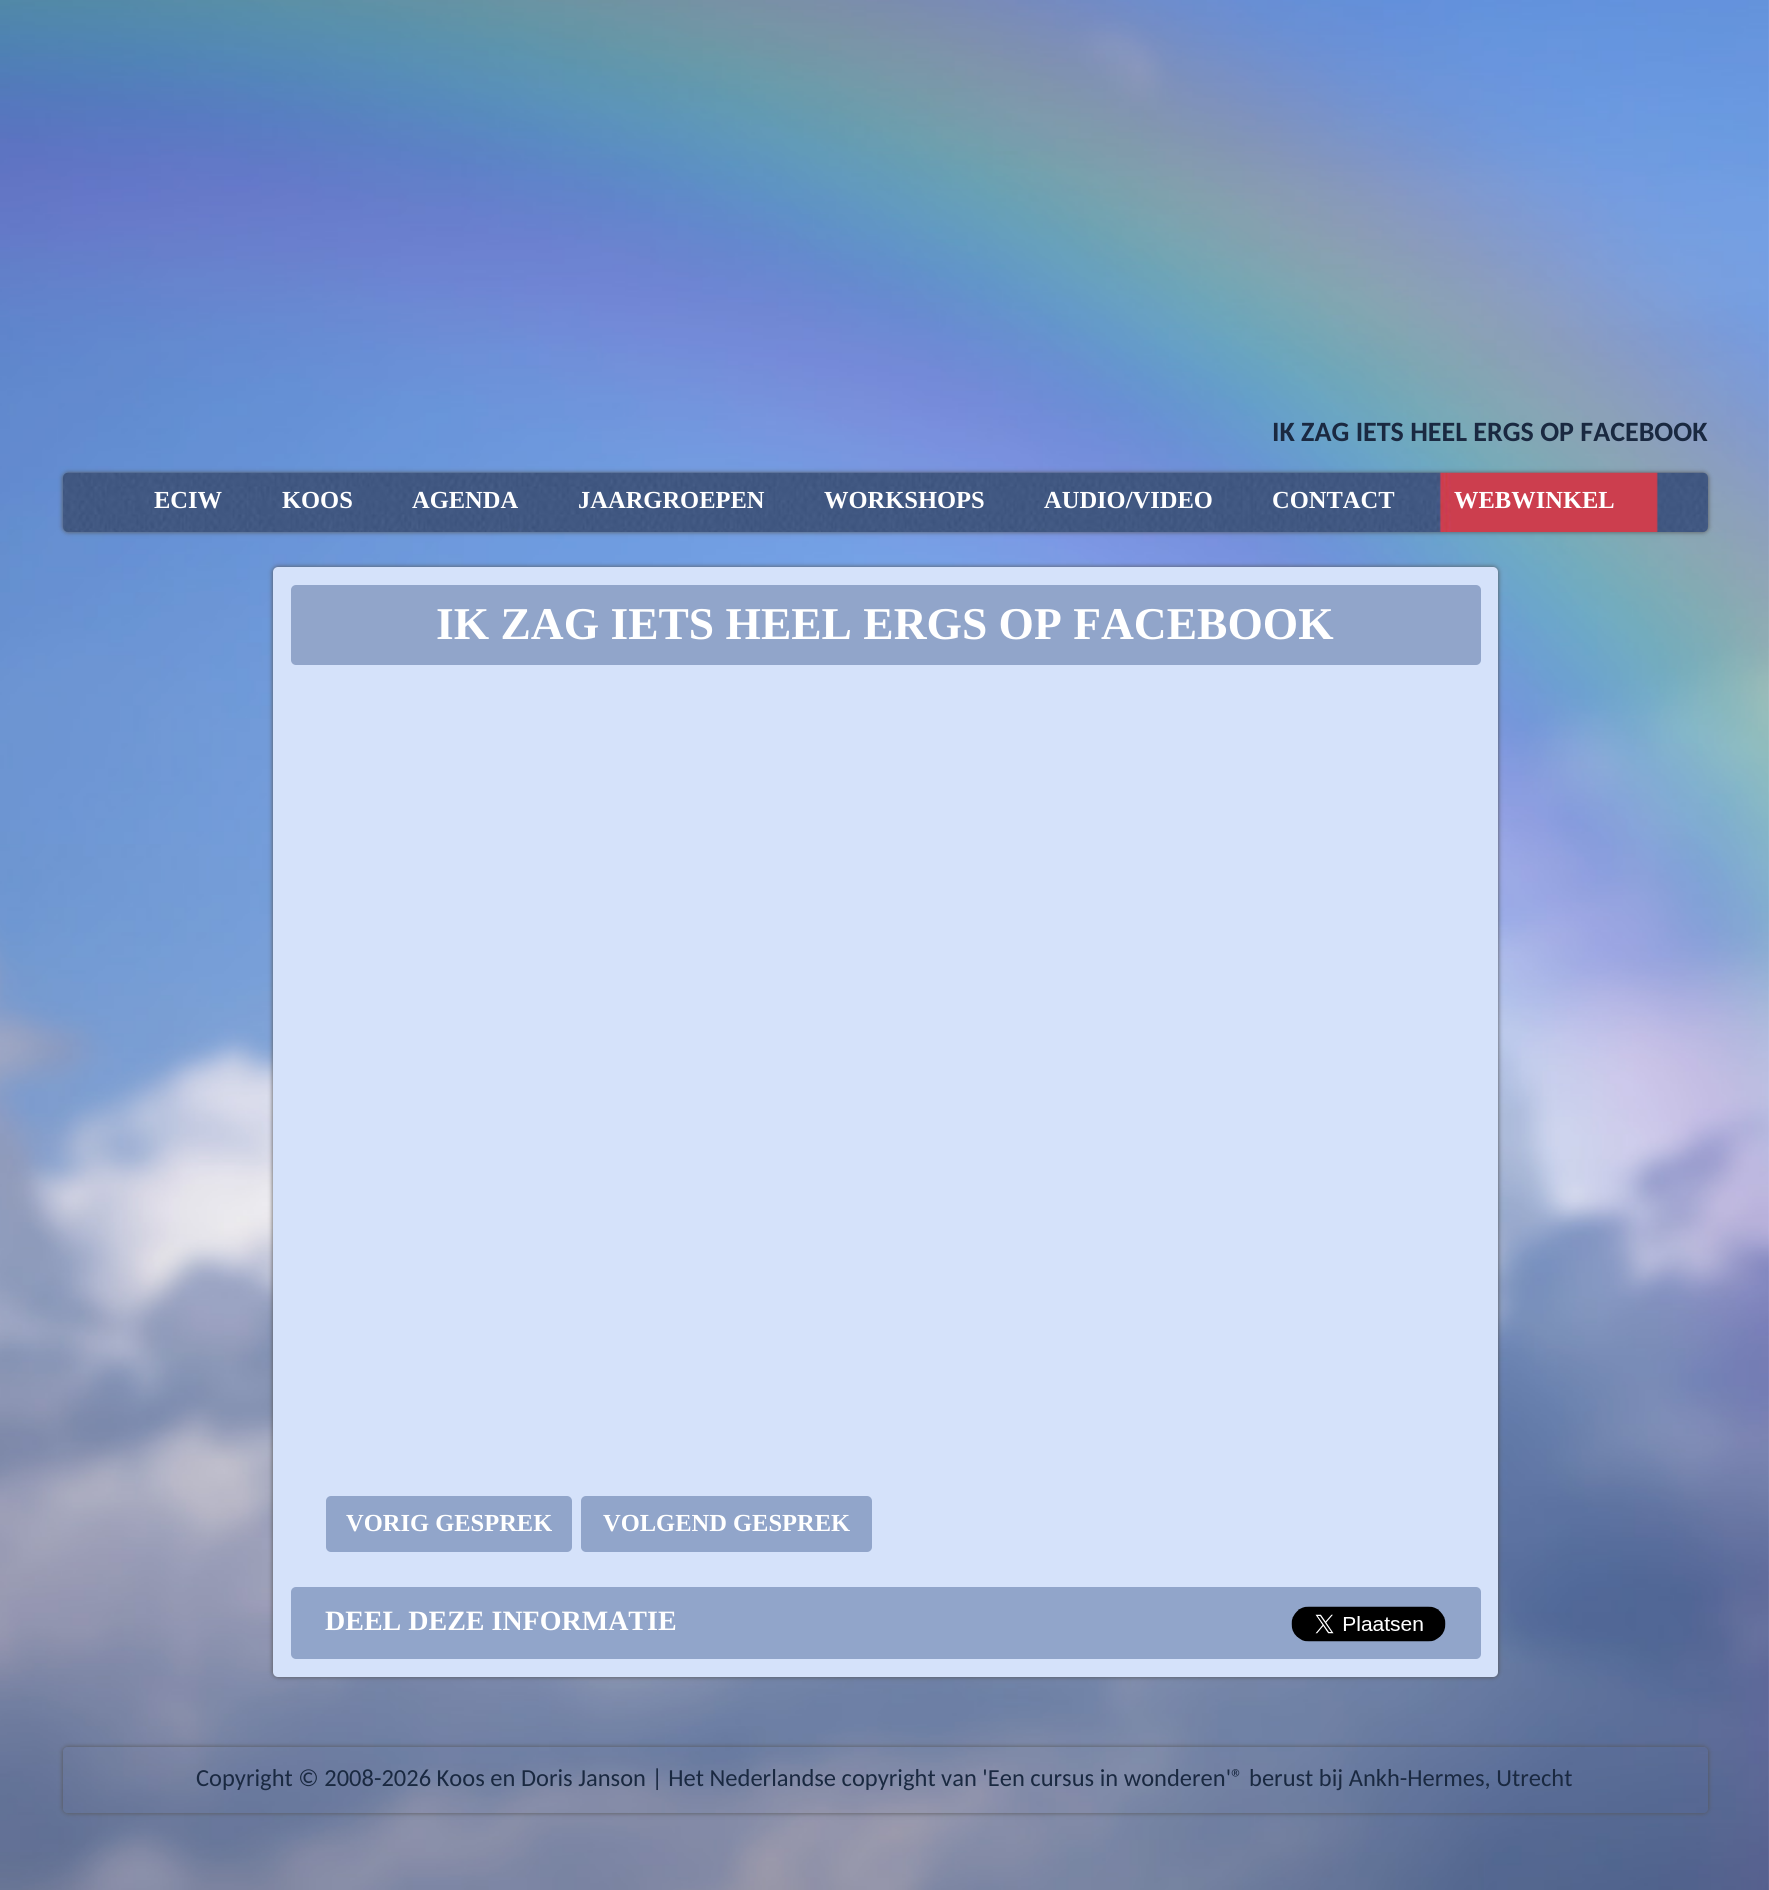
import math
import cairo


def round_path(ctx, x, y, w, h, r):
	ctx.new_sub_path()
	for i, (u, v) in enumerate([(x + w - r, y + h - r), (x + r, y + h - r), (x + r, y + r), (x + w - r, y + r)]):
		ctx.arc(u, v, r, i * math.pi / 2, (i + 1) * math.pi / 2)
	ctx.close_path()

def blur_box(ctx, x, y, w, h, r, blur, alpha):
	ctx.push_group_with_content(cairo.CONTENT_ALPHA)
	ctx.set_operator(cairo.OPERATOR_SOURCE)
	for i in range(15, -16, -2):
		e = blur * i / 6
		if min(w, h) + 2 * e > 0:
			ctx.set_source_rgba(0, 0, 0, alpha * math.erfc((i - 1) / 8.5) / 2)
			round_path(ctx, x - e, y - e, w + 2 * e, h + 2 * e, max(0, min(r + e + blur * .6, min(w, h) / 2 + e)))
			ctx.fill()
	ctx.mask(ctx.pop_group())

def paste(ctx, path, x, y, w, h):
	ctx.save()
	ctx.set_source_surface(cairo.ImageSurface.create_from_png(path), x, y)
	ctx.rectangle(x, y, w, h)
	ctx.fill()
	ctx.restore()

def draw(ctx):
	ctx.set_source_rgb(1, 1, 1)
	ctx.paint()
	paste(ctx, 'media/1.png', 0, 0, 1769, 1890)
	paste(ctx, 'media/2.png', 1768, 0, 1, 1890)
	ctx.select_font_face('Carlito', cairo.FONT_SLANT_NORMAL, cairo.FONT_WEIGHT_BOLD)
	ctx.set_font_size(28)
	ctx.set_source_rgb(0.102, 0.161, 0.255)
	ctx.move_to(1272, 441)
	ctx.show_text('IK ZAG IETS HEEL ERGS OP FACEBOOK')
	ctx.set_source_rgb(0.333, 0.333, 0.333)
	blur_box(ctx, 63, 473, 1645, 59, 5, 2.5, 1)
	paste(ctx, 'media/3.png', 63, 472, 1645, 60)
	ctx.select_font_face('Liberation Serif', cairo.FONT_SLANT_NORMAL, cairo.FONT_WEIGHT_BOLD)
	ctx.set_font_size(24.5)
	ctx.set_source_rgb(1, 1, 1)
	for x, y, s in [
		(154, 508, 'ECIW'),
		(282, 508, 'KOOS'),
		(412, 508, 'AGENDA'),
		(578, 508, 'JAARGROEPEN'),
		(824, 508, 'WORKSHOPS'),
		(1044, 508, 'AUDIO/VIDEO'),
		(1272, 508, 'CONTACT'),
		(1454, 508, 'WEBWINKEL'),
	]:
		ctx.move_to(x, y)
		ctx.show_text(s)
	ctx.set_source_rgb(0.333, 0.333, 0.333)
	blur_box(ctx, 273, 567, 1225, 1110, 5, 2.5, 1)
	ctx.set_source_rgb(0.835, 0.886, 0.98)
	round_path(ctx, 273, 567, 1225, 1110, 5)
	ctx.fill()
	ctx.set_source_rgb(0.569, 0.647, 0.792)
	round_path(ctx, 291, 585, 1190, 80, 5)
	ctx.fill()
	ctx.set_font_size(45.5)
	ctx.set_source_rgb(1, 1, 1)
	ctx.move_to(436, 639)
	ctx.show_text('IK ZAG IETS HEEL ERGS OP FACEBOOK')
	ctx.set_source_rgb(0.569, 0.647, 0.792)
	round_path(ctx, 326, 1496, 246, 56, 5)
	ctx.fill()
	ctx.set_font_size(24.5)
	ctx.set_source_rgb(1, 1, 1)
	ctx.move_to(346, 1531)
	ctx.show_text('VORIG GESPREK')
	ctx.set_source_rgb(0.569, 0.647, 0.792)
	round_path(ctx, 581, 1496, 291, 56, 5)
	ctx.fill()
	ctx.set_source_rgb(1, 1, 1)
	ctx.move_to(603, 1531)
	ctx.show_text('VOLGEND GESPREK')
	ctx.set_source_rgb(0.569, 0.647, 0.792)
	round_path(ctx, 291, 1587, 1190, 72, 5)
	ctx.fill()
	ctx.set_font_size(28)
	ctx.set_source_rgb(1, 1, 1)
	ctx.move_to(325, 1630)
	ctx.show_text('DEEL DEZE INFORMATIE')
	paste(ctx, 'media/4.png', 1291, 1606, 155, 36)
	ctx.save()
	ctx.set_fill_rule(cairo.FILL_RULE_EVEN_ODD)
	ctx.new_path()
	ctx.move_to(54, 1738)
	ctx.line_to(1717, 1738)
	ctx.line_to(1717, 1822)
	ctx.line_to(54, 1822)
	ctx.close_path()
	ctx.move_to(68, 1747)
	ctx.line_to(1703, 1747)
	ctx.curve_to(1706, 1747, 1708, 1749, 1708, 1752)
	ctx.line_to(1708, 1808)
	ctx.curve_to(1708, 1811, 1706, 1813, 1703, 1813)
	ctx.line_to(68, 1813)
	ctx.curve_to(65, 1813, 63, 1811, 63, 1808)
	ctx.line_to(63, 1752)
	ctx.curve_to(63, 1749, 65, 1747, 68, 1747)
	ctx.close_path()
	ctx.clip()
	ctx.set_source_rgb(0.333, 0.333, 0.333)
	blur_box(ctx, 63, 1747, 1645, 66, 5, 2.5, 1)
	ctx.restore()
	ctx.select_font_face('Carlito')
	ctx.set_font_size(24.5)
	ctx.set_source_rgb(0.102, 0.161, 0.255)
	ctx.move_to(196, 1786)
	ctx.show_text('Copyright © 2008-2026 Koos en Doris Janson | Het Nederlandse copyright van \'Een cursus in wonderen\'® berust bij Ankh-Hermes, Utrecht')


surface = cairo.ImageSurface(cairo.FORMAT_RGB24, 1769, 1890)
ctx = cairo.Context(surface)
options = cairo.FontOptions()
options.set_hint_metrics(cairo.HINT_METRICS_OFF)
options.set_hint_style(cairo.HINT_STYLE_NONE)
ctx.set_font_options(options)
ctx.set_miter_limit(4)
draw(ctx)
surface.write_to_png('image.png')
